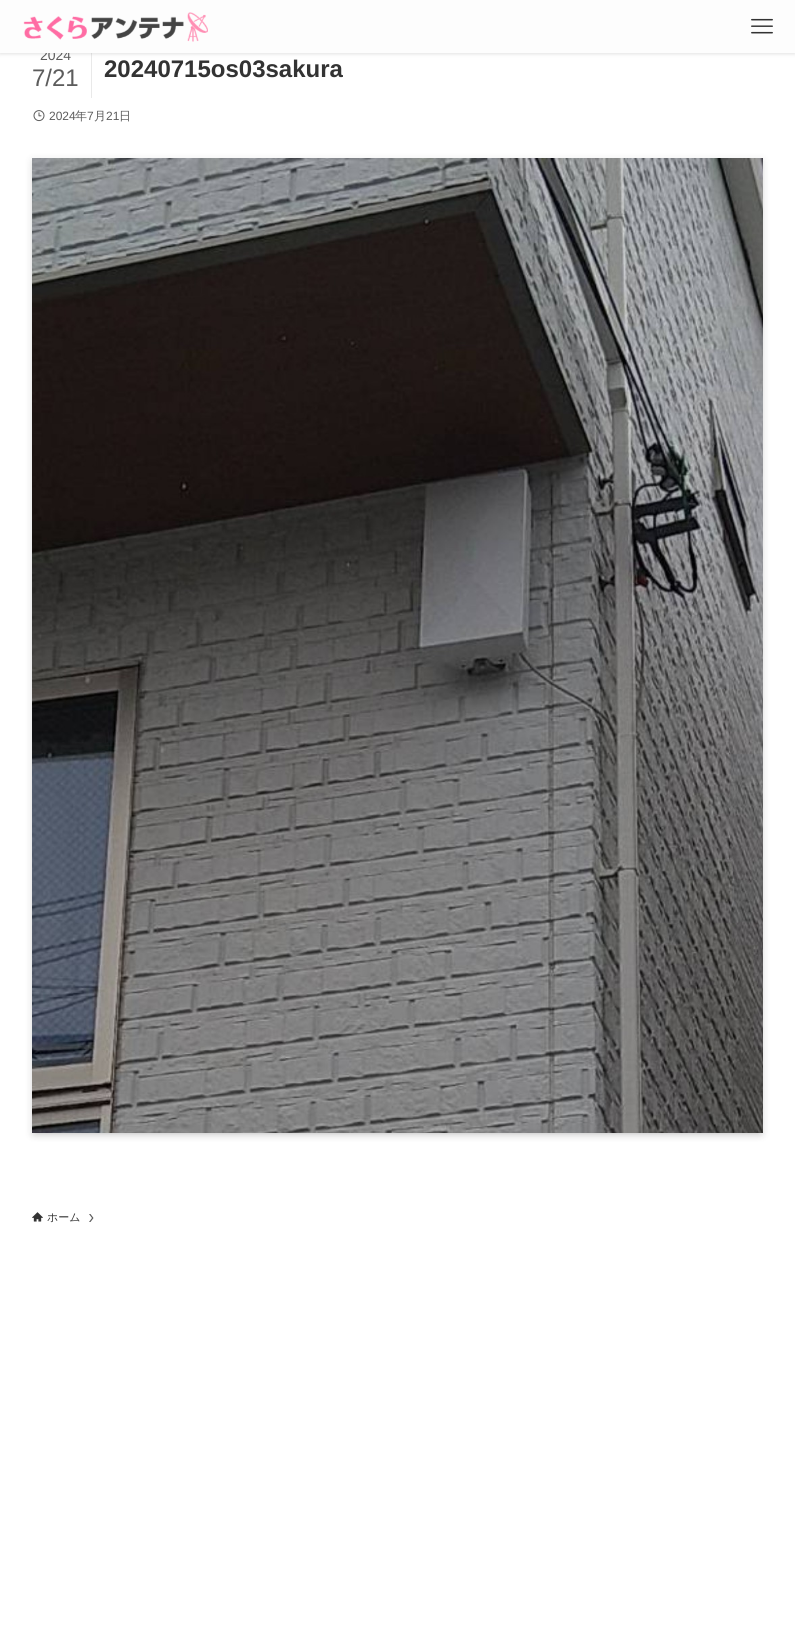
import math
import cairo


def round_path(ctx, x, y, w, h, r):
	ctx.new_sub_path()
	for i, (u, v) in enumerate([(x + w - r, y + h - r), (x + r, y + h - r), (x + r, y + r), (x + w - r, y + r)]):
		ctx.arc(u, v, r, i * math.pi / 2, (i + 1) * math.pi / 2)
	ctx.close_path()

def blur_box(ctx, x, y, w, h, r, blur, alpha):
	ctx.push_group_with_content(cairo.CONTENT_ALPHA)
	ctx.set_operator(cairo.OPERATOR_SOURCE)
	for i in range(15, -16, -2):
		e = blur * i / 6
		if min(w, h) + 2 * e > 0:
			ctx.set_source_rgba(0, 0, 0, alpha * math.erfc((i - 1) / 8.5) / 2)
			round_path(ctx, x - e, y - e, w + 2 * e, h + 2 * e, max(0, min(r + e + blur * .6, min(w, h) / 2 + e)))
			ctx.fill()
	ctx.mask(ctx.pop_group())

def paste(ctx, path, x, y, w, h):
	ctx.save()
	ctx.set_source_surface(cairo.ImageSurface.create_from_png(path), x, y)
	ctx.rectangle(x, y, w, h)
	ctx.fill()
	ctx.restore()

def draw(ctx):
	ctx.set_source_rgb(1, 1, 1)
	ctx.paint()
	ctx.set_source_rgb(0.914, 0.914, 0.914)
	ctx.rectangle(91, 53, 1, 45)
	ctx.fill()
	ctx.set_source_rgb(0, 0, 0)
	blur_box(ctx, 0, 1, 795, 53, 0, 2, 0.12)
	ctx.select_font_face('Liberation Sans')
	ctx.set_font_size(14)
	ctx.set_source_rgb(0.361, 0.361, 0.361)
	ctx.move_to(40, 60)
	ctx.show_text('2024')
	ctx.set_source_rgb(0.992, 0.992, 0.992)
	ctx.rectangle(0, 0, 795, 53)
	ctx.fill()
	paste(ctx, 'media/1.png', 23, 12, 185, 30)
	paste(ctx, 'media/2.png', 751, 18, 22, 16)
	ctx.set_font_size(24)
	ctx.set_source_rgb(0.361, 0.361, 0.361)
	ctx.move_to(32, 86)
	ctx.show_text('7/21')
	ctx.select_font_face('Liberation Sans', cairo.FONT_SLANT_NORMAL, cairo.FONT_WEIGHT_BOLD)
	ctx.set_source_rgb(0.2, 0.2, 0.2)
	ctx.move_to(104, 77)
	ctx.show_text('20240715os03sakura')
	paste(ctx, 'media/3.png', 33, 110, 12, 12)
	ctx.select_font_face('Liberation Sans')
	ctx.set_font_size(12)
	ctx.set_source_rgb(0.361, 0.361, 0.361)
	ctx.move_to(49, 120)
	ctx.show_text('2024')
	ctx.select_font_face('WenQuanYi Zen Hei Medium')
	ctx.move_to(75, 120)
	ctx.show_text('年')
	ctx.select_font_face('Liberation Sans')
	ctx.move_to(87, 120)
	ctx.show_text('7')
	ctx.select_font_face('WenQuanYi Zen Hei Medium')
	ctx.move_to(94, 120)
	ctx.show_text('月')
	ctx.select_font_face('Liberation Sans')
	ctx.move_to(106, 120)
	ctx.show_text('21')
	ctx.select_font_face('WenQuanYi Zen Hei Medium')
	ctx.move_to(119, 120)
	ctx.show_text('日')
	ctx.set_source_rgb(0, 0, 0)
	blur_box(ctx, 36, 166, 723, 967, 0, 4, 0.2)
	blur_box(ctx, 32, 160, 731, 975, 0, 4, 0.1)
	paste(ctx, 'media/4.png', 32, 158, 731, 975)
	paste(ctx, 'media/5.png', 32, 1212, 11, 10)
	ctx.set_font_size(11)
	ctx.set_source_rgb(0.2, 0.2, 0.2)
	ctx.move_to(47, 1221)
	ctx.show_text('ホーム')
	ctx.set_source_rgb(0.361, 0.361, 0.361)
	ctx.new_path()
	ctx.move_to(90.5, 1214)
	ctx.line_to(89, 1214)
	ctx.line_to(92, 1218)
	ctx.line_to(89, 1222)
	ctx.line_to(90.5, 1222)
	ctx.line_to(93.5, 1218)
	ctx.close_path()
	ctx.fill()


surface = cairo.ImageSurface(cairo.FORMAT_RGB24, 795, 1636)
ctx = cairo.Context(surface)
options = cairo.FontOptions()
options.set_hint_metrics(cairo.HINT_METRICS_OFF)
options.set_hint_style(cairo.HINT_STYLE_NONE)
ctx.set_font_options(options)
ctx.set_miter_limit(4)
draw(ctx)
surface.write_to_png('image.png')
